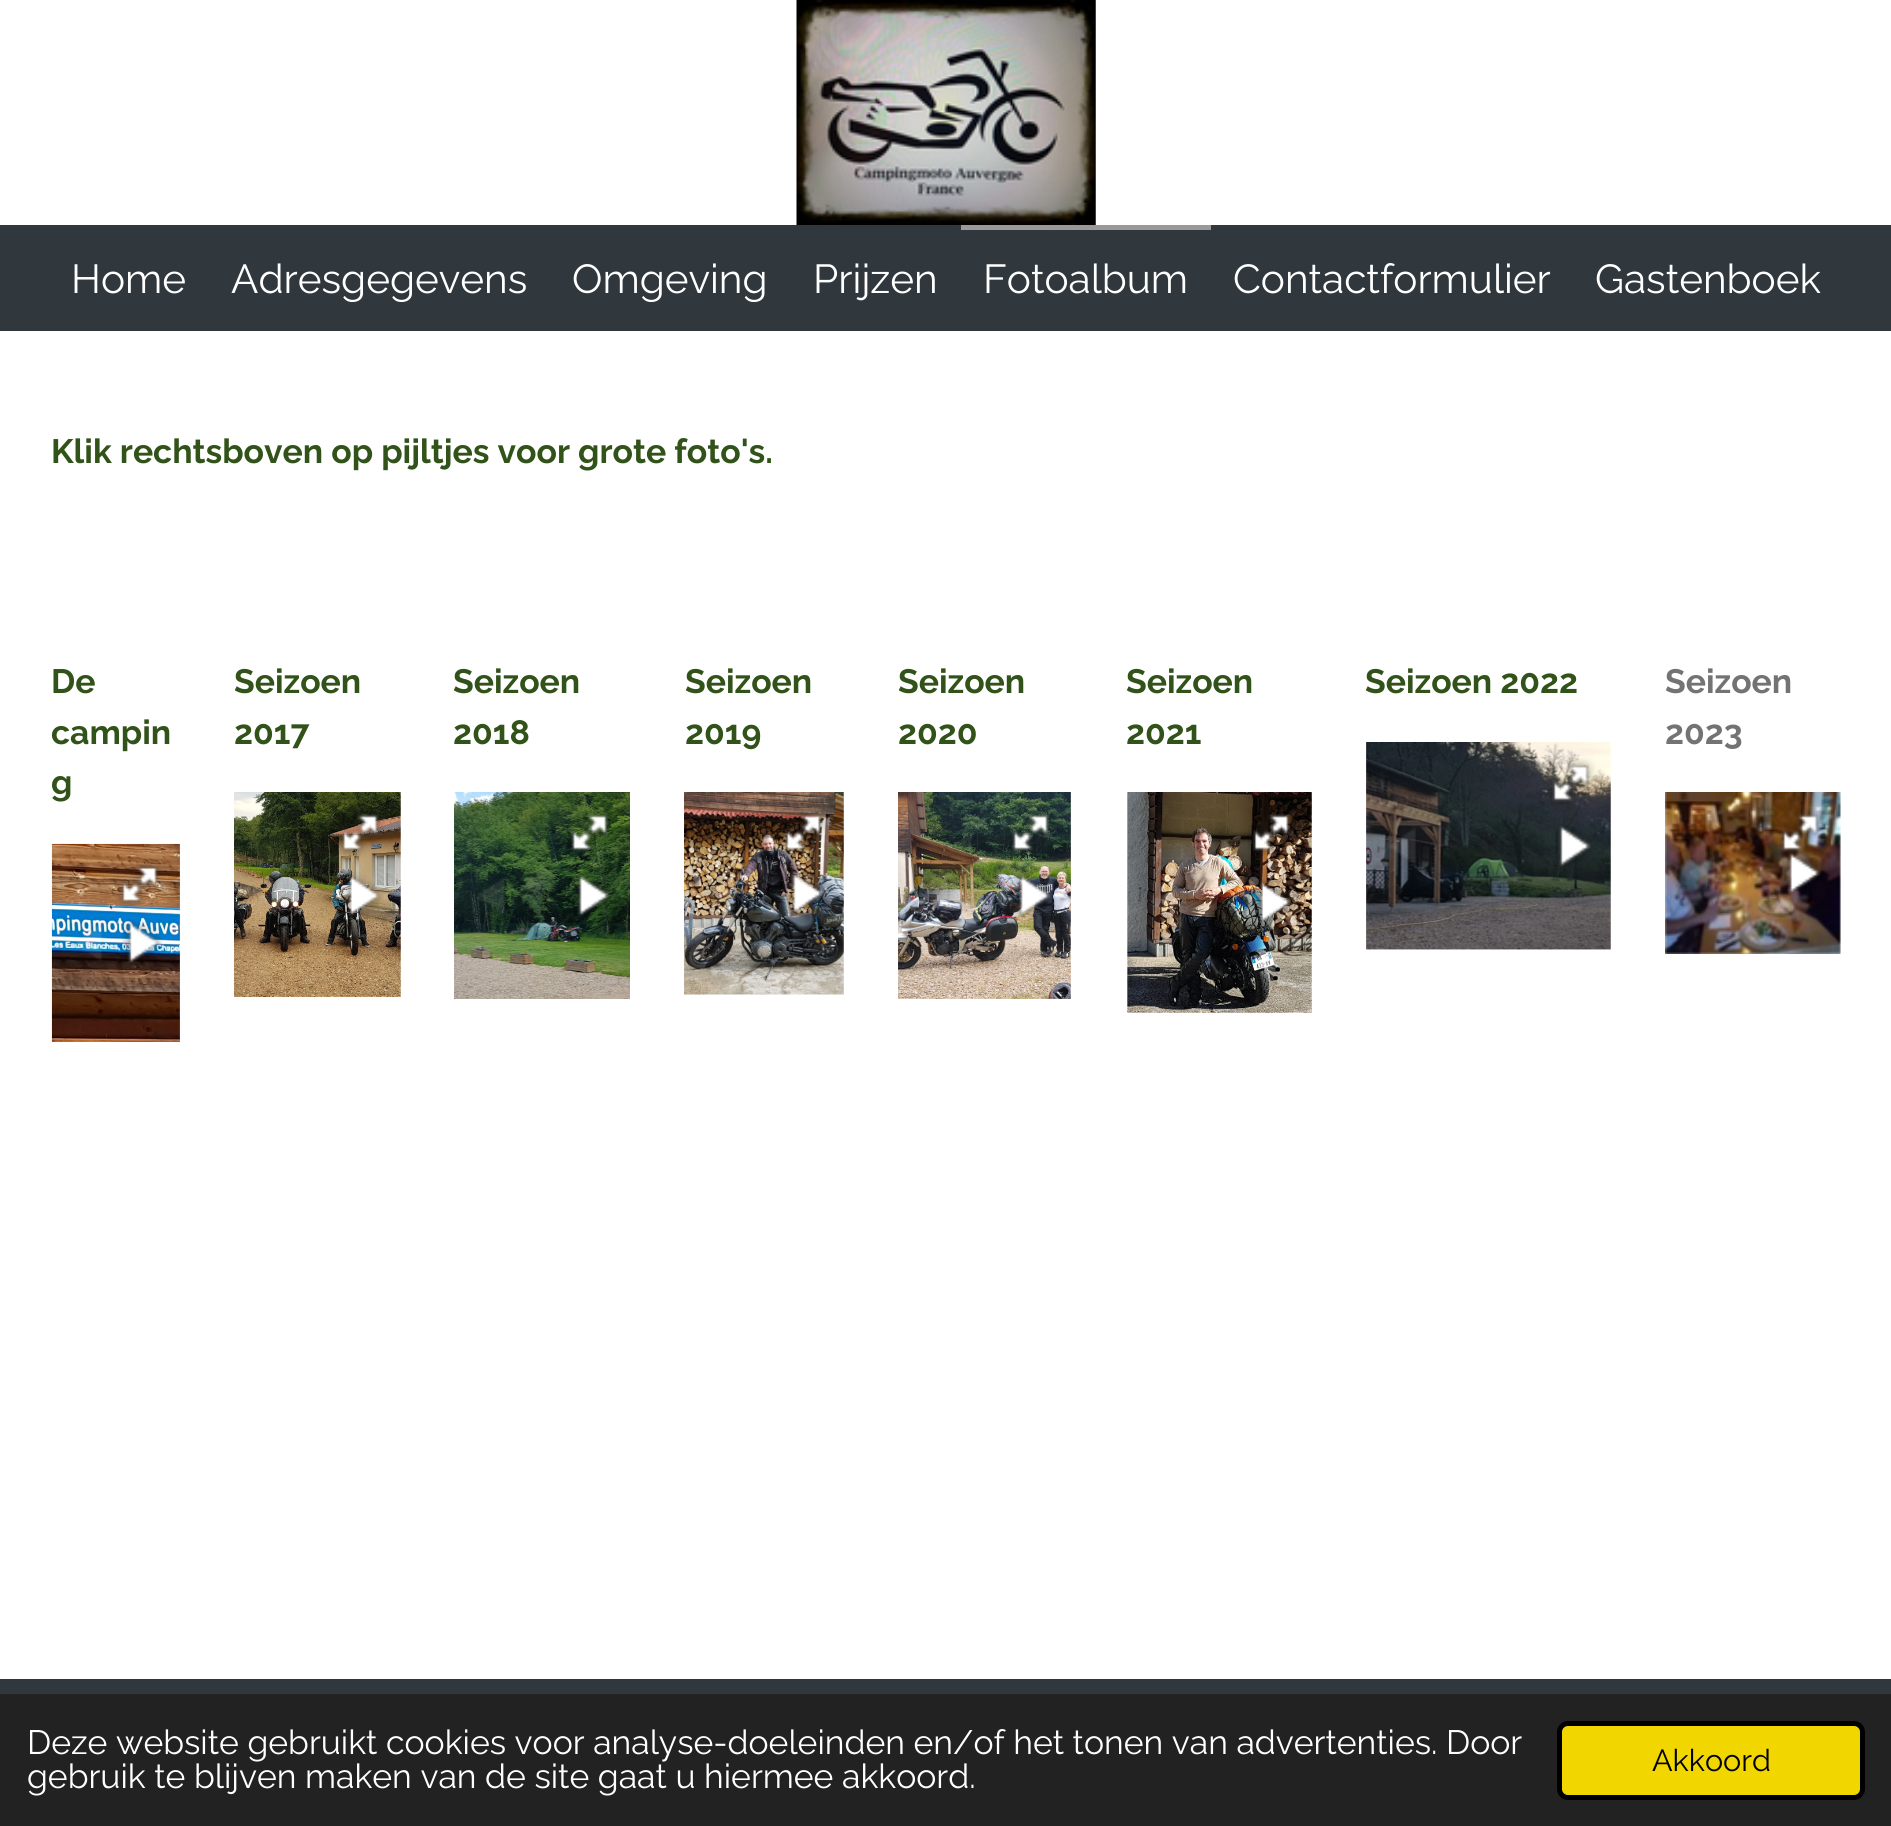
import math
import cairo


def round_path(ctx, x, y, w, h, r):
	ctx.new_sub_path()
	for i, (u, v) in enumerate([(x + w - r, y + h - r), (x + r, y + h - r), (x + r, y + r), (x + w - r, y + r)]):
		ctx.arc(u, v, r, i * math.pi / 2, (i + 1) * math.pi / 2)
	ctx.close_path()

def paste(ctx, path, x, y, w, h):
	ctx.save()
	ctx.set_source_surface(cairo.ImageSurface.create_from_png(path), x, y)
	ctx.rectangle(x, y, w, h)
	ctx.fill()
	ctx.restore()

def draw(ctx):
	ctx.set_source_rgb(1, 1, 1)
	ctx.paint()
	paste(ctx, 'media/1.png', 796, 0, 300, 225)
	ctx.set_source_rgb(0.188, 0.22, 0.239)
	ctx.rectangle(0, 225, 1891, 106)
	ctx.fill()
	ctx.select_font_face('Raleway')
	ctx.set_font_size(40.5)
	ctx.set_source_rgb(1, 1, 1)
	for x, y, s in [
		(71, 293, 'Home'),
		(231, 293, 'Adresgegevens'),
		(572, 293, 'Omgeving'),
		(813, 293, 'Prijzen'),
	]:
		ctx.move_to(x, y)
		ctx.show_text(s)
	ctx.set_source_rgb(0.6, 0.6, 0.6)
	ctx.rectangle(961, 225, 250, 5)
	ctx.fill()
	ctx.set_source_rgb(1, 1, 1)
	for x, y, s in [
		(983, 293, 'Fotoalbum'),
		(1233, 293, 'Contactformulier'),
		(1595, 293, 'Gastenboek'),
	]:
		ctx.move_to(x, y)
		ctx.show_text(s)
	ctx.select_font_face('Raleway', cairo.FONT_SLANT_NORMAL, cairo.FONT_WEIGHT_BOLD)
	ctx.set_font_size(33.75)
	ctx.set_source_rgb(0.192, 0.322, 0.098)
	for x, y, s in [
		(51, 463, 'Klik rechtsboven op pijltjes voor grote foto\'s.'),
		(51, 693, 'De'),
		(51, 744, 'campin'),
		(51, 794, 'g'),
	]:
		ctx.move_to(x, y)
		ctx.show_text(s)
	paste(ctx, 'media/2.png', 51, 843, 129, 199)
	paste(ctx, 'media/3.png', 114, 859, 51, 50)
	paste(ctx, 'media/4.png', 73, 923, 31, 39)
	paste(ctx, 'media/5.png', 121, 919, 42, 45)
	ctx.move_to(234, 693)
	ctx.show_text('Seizoen')
	ctx.move_to(234, 744)
	ctx.show_text('2017')
	paste(ctx, 'media/6.png', 234, 792, 167, 205)
	paste(ctx, 'media/7.png', 336, 812, 49, 46)
	paste(ctx, 'media/8.png', 257, 880, 29, 34)
	paste(ctx, 'media/9.png', 341, 872, 43, 47)
	ctx.move_to(453, 693)
	ctx.show_text('Seizoen')
	ctx.move_to(453, 744)
	ctx.show_text('2018')
	paste(ctx, 'media/10.png', 454, 792, 176, 207)
	paste(ctx, 'media/11.png', 567, 809, 47, 46)
	paste(ctx, 'media/12.png', 477, 877, 28, 37)
	paste(ctx, 'media/13.png', 572, 873, 38, 44)
	ctx.move_to(685, 693)
	ctx.show_text('Seizoen')
	ctx.move_to(685, 744)
	ctx.show_text('2019')
	paste(ctx, 'media/14.png', 684, 792, 160, 203)
	paste(ctx, 'media/15.png', 779, 808, 49, 50)
	paste(ctx, 'media/16.png', 708, 876, 28, 36)
	paste(ctx, 'media/17.png', 784, 870, 42, 47)
	ctx.move_to(898, 693)
	ctx.show_text('Seizoen')
	ctx.move_to(898, 744)
	ctx.show_text('2020')
	paste(ctx, 'media/18.png', 898, 792, 173, 207)
	paste(ctx, 'media/19.png', 1009, 808, 45, 48)
	paste(ctx, 'media/20.png', 921, 877, 29, 37)
	paste(ctx, 'media/21.png', 1011, 873, 43, 47)
	ctx.move_to(1126, 693)
	ctx.show_text('Seizoen')
	ctx.move_to(1126, 744)
	ctx.show_text('2021')
	paste(ctx, 'media/22.png', 1127, 792, 185, 221)
	paste(ctx, 'media/23.png', 1248, 812, 44, 46)
	paste(ctx, 'media/24.png', 1149, 884, 30, 37)
	paste(ctx, 'media/25.png', 1252, 878, 42, 47)
	ctx.move_to(1365, 693)
	ctx.show_text('Seizoen 2022')
	paste(ctx, 'media/26.png', 1366, 742, 245, 208)
	paste(ctx, 'media/27.png', 1548, 758, 48, 47)
	paste(ctx, 'media/28.png', 1388, 827, 28, 38)
	paste(ctx, 'media/29.png', 1555, 825, 36, 42)
	ctx.set_source_rgb(0.451, 0.451, 0.451)
	ctx.move_to(1665, 693)
	ctx.show_text('Seizoen')
	ctx.move_to(1665, 744)
	ctx.show_text('2023')
	paste(ctx, 'media/30.png', 1665, 792, 176, 162)
	paste(ctx, 'media/33.png', 1782, 852, 39, 44)
	paste(ctx, 'media/31.png', 1776, 808, 49, 50)
	paste(ctx, 'media/32.png', 1689, 854, 27, 38)
	ctx.set_source_rgb(0.188, 0.22, 0.239)
	ctx.rectangle(0, 1679, 1891, 15)
	ctx.fill()
	ctx.set_source_rgb(0.133, 0.133, 0.133)
	ctx.rectangle(0, 1694, 1891, 132)
	ctx.fill()
	ctx.select_font_face('Raleway')
	ctx.set_source_rgb(1, 1, 1)
	ctx.move_to(27, 1754)
	ctx.show_text('Deze website gebruikt cookies voor analyse-doeleinden en/of het tonen van advertenties. Door')
	ctx.move_to(27, 1788)
	ctx.show_text('gebruik te blijven maken van de site gaat u hiermee akkoord.')
	ctx.set_source_rgb(0.945, 0.839, 0)
	round_path(ctx, 1559.5, 1723.5, 303, 74, 8.5)
	ctx.fill_preserve()
	ctx.set_source_rgb(0, 0, 0)
	ctx.set_line_width(5)
	ctx.stroke()
	ctx.set_font_size(30.5)
	ctx.move_to(1652, 1771)
	ctx.show_text('Akkoord')


surface = cairo.ImageSurface(cairo.FORMAT_RGB24, 1891, 1826)
ctx = cairo.Context(surface)
options = cairo.FontOptions()
options.set_hint_metrics(cairo.HINT_METRICS_OFF)
options.set_hint_style(cairo.HINT_STYLE_NONE)
ctx.set_font_options(options)
ctx.set_miter_limit(4)
draw(ctx)
surface.write_to_png('image.png')
